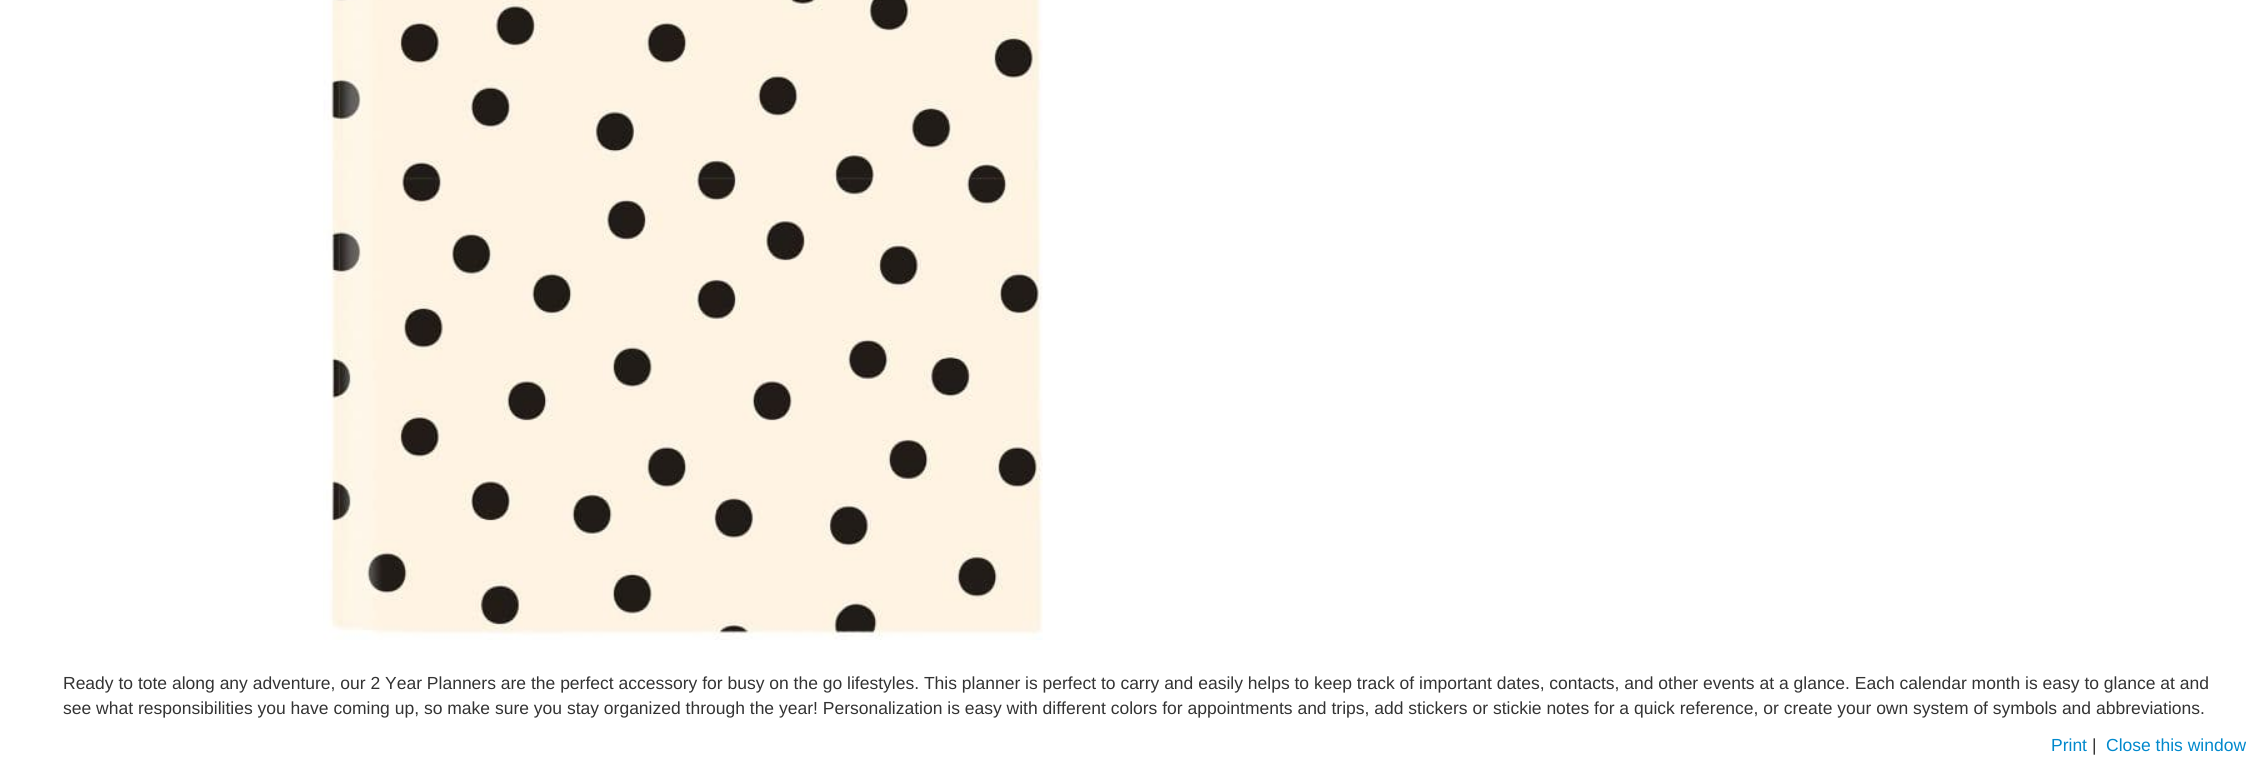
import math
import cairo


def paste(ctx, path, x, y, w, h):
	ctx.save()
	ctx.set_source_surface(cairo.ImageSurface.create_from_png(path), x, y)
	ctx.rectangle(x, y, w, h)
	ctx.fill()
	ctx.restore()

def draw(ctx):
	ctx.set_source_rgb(1, 1, 1)
	ctx.paint()
	paste(ctx, 'media/1.png', 323, 0, 720, 640)
	ctx.select_font_face('Liberation Sans')
	ctx.set_font_size(17.5)
	ctx.set_source_rgb(0.2, 0.2, 0.2)
	ctx.move_to(63, 689)
	ctx.show_text('Ready to tote along any adventure, our 2 Year Planners are the perfect accessory for busy on the go lifestyles. This planner is perfect to carry and easily helps to keep track of important dates, contacts, and other events at a glance. Each calendar month is easy to glance at and')
	ctx.move_to(63, 714)
	ctx.show_text('see what responsibilities you have coming up, so make sure you stay organized through the year! Personalization is easy with different colors for appointments and trips, add stickers or stickie notes for a quick reference, or create your own system of symbols and abbreviations.')
	ctx.set_source_rgb(0, 0.533, 0.8)
	ctx.move_to(2051, 751)
	ctx.show_text('Print')
	ctx.set_source_rgb(0.2, 0.2, 0.2)
	ctx.move_to(2092, 751)
	ctx.show_text('|')
	ctx.set_source_rgb(0, 0.533, 0.8)
	ctx.move_to(2106, 751)
	ctx.show_text('Close this window')


surface = cairo.ImageSurface(cairo.FORMAT_RGB24, 2246, 770)
ctx = cairo.Context(surface)
options = cairo.FontOptions()
options.set_hint_metrics(cairo.HINT_METRICS_OFF)
options.set_hint_style(cairo.HINT_STYLE_NONE)
ctx.set_font_options(options)
ctx.set_miter_limit(4)
draw(ctx)
surface.write_to_png('image.png')
